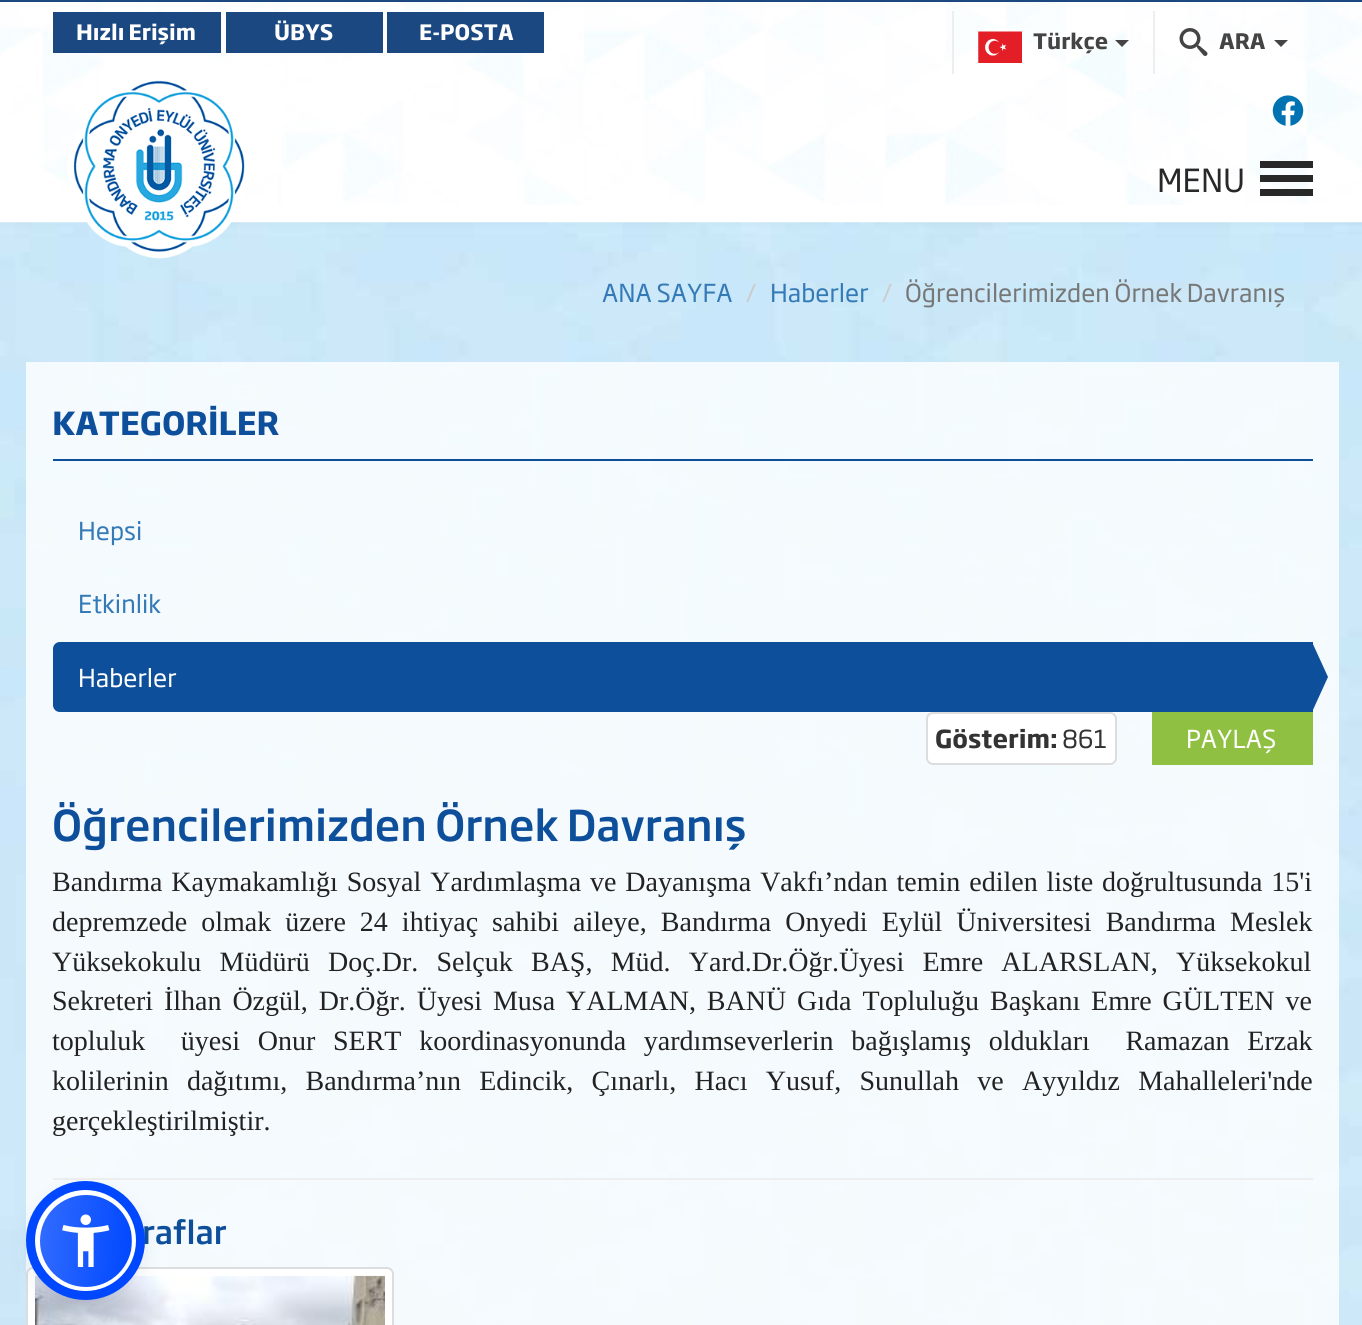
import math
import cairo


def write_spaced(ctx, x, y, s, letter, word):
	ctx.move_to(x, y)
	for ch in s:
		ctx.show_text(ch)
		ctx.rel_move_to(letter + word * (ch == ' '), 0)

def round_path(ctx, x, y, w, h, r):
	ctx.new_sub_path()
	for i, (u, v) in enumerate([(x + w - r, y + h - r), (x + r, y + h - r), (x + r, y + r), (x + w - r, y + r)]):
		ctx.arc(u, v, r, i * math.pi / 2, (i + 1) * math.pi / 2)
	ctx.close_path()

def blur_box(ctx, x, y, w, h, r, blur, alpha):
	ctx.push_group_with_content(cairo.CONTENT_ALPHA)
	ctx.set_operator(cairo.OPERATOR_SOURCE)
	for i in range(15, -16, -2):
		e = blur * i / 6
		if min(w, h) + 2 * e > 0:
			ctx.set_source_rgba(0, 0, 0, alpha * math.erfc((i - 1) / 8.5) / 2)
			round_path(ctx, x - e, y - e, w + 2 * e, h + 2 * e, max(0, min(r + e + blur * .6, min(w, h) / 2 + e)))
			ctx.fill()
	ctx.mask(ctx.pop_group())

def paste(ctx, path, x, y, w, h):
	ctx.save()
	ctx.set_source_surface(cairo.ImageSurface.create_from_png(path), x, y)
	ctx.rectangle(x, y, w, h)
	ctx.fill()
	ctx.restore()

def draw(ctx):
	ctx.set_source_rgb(1, 1, 1)
	ctx.paint()
	paste(ctx, 'media/1.png', 0, 2, 1362, 203)
	ctx.set_source_rgb(0.106, 0.282, 0.506)
	ctx.rectangle(0, 0, 1362, 2)
	ctx.fill()
	ctx.rectangle(53, 12, 168, 41)
	ctx.fill()
	ctx.select_font_face('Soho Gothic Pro', cairo.FONT_SLANT_NORMAL, cairo.FONT_WEIGHT_BOLD)
	ctx.set_font_size(21)
	ctx.set_source_rgb(1, 1, 1)
	ctx.move_to(76, 40)
	ctx.show_text('Hızlı Erişim')
	ctx.set_source_rgb(0.106, 0.282, 0.506)
	ctx.rectangle(226, 12, 157, 41)
	ctx.fill()
	ctx.set_source_rgb(1, 1, 1)
	ctx.move_to(274, 40)
	ctx.show_text('ÜBYS')
	ctx.set_source_rgb(0.106, 0.282, 0.506)
	ctx.rectangle(387, 12, 157, 41)
	ctx.fill()
	ctx.set_source_rgb(1, 1, 1)
	ctx.move_to(419, 40)
	ctx.show_text('E-POSTA')
	ctx.set_source_rgb(0.933, 0.933, 0.933)
	ctx.rectangle(952, 11, 2, 63)
	ctx.fill()
	paste(ctx, 'media/2.png', 978, 31, 44, 32)
	ctx.set_source_rgb(0.267, 0.267, 0.267)
	ctx.move_to(1033, 49)
	ctx.show_text('Türkçe')
	ctx.new_path()
	ctx.move_to(1115, 40)
	ctx.line_to(1129, 40)
	ctx.line_to(1122, 47)
	ctx.close_path()
	ctx.fill()
	ctx.set_source_rgb(0.933, 0.933, 0.933)
	ctx.rectangle(1153, 11, 2, 63)
	ctx.fill()
	paste(ctx, 'media/3.png', 1179, 28, 29, 28)
	ctx.set_source_rgb(0.267, 0.267, 0.267)
	ctx.move_to(1219, 49)
	ctx.show_text('ARA')
	ctx.new_path()
	ctx.move_to(1274, 40)
	ctx.line_to(1288, 40)
	ctx.line_to(1281, 47)
	ctx.close_path()
	ctx.fill()
	paste(ctx, 'media/4.png', 1272, 95, 32, 31)
	paste(ctx, 'media/6.png', 0, 222, 1362, 1103)
	paste(ctx, 'media/5.png', 67, 80, 178, 179)
	ctx.select_font_face('Soho Gothic Pro')
	ctx.set_font_size(31.5)
	ctx.set_source_rgb(0.157, 0.157, 0.157)
	ctx.move_to(1157, 192)
	ctx.show_text('MENU')
	ctx.rectangle(1260, 175, 53, 7)
	ctx.rectangle(1260, 161, 53, 7)
	ctx.rectangle(1260, 189, 53, 7)
	ctx.fill()
	ctx.set_font_size(24.5)
	ctx.set_source_rgb(0.2, 0.478, 0.718)
	ctx.move_to(602, 302)
	ctx.show_text('ANA SAYFA')
	ctx.set_source_rgb(0.8, 0.8, 0.8)
	ctx.move_to(746, 302)
	ctx.show_text('/')
	ctx.set_source_rgb(0.2, 0.478, 0.718)
	ctx.move_to(770, 302)
	ctx.show_text('Haberler')
	ctx.set_source_rgb(0.8, 0.8, 0.8)
	ctx.move_to(882, 302)
	ctx.show_text('/')
	ctx.set_source_rgb(0.467, 0.467, 0.467)
	ctx.move_to(905, 302)
	ctx.show_text('Öğrencilerimizden Örnek Davranış')
	ctx.set_source_rgba(1, 1, 1, 0.8)
	ctx.rectangle(26, 362, 1313, 963)
	ctx.fill()
	ctx.set_source_rgb(0.055, 0.31, 0.608)
	ctx.rectangle(53, 459, 1260, 2)
	ctx.fill()
	ctx.select_font_face('Soho Gothic Pro', cairo.FONT_SLANT_NORMAL, cairo.FONT_WEIGHT_BOLD)
	ctx.set_font_size(31.5)
	ctx.move_to(52, 435)
	ctx.show_text('KATEGORİLER')
	ctx.select_font_face('Soho Gothic Pro')
	ctx.set_font_size(24.5)
	ctx.set_source_rgb(0.2, 0.478, 0.718)
	ctx.move_to(78, 540)
	ctx.show_text('Hepsi')
	ctx.move_to(78, 613)
	ctx.show_text('Etkinlik')
	ctx.set_source_rgb(0.055, 0.31, 0.608)
	ctx.new_path()
	ctx.move_to(60, 642)
	ctx.line_to(1313, 642)
	ctx.line_to(1313, 712)
	ctx.line_to(60, 712)
	ctx.curve_to(56, 712, 53, 709, 53, 705)
	ctx.line_to(53, 649)
	ctx.curve_to(53, 645, 56, 642, 60, 642)
	ctx.close_path()
	ctx.fill()
	ctx.set_source_rgb(1, 1, 1)
	ctx.move_to(78, 687)
	ctx.show_text('Haberler')
	ctx.set_source_rgb(0.055, 0.31, 0.608)
	ctx.new_path()
	ctx.move_to(1312, 712)
	ctx.line_to(1312, 642)
	ctx.line_to(1328, 677)
	ctx.close_path()
	ctx.fill()
	ctx.set_source_rgb(1, 1, 1)
	round_path(ctx, 927, 713, 189, 51, 6)
	ctx.fill_preserve()
	ctx.set_source_rgb(0.867, 0.867, 0.867)
	ctx.stroke()
	ctx.select_font_face('Soho Gothic Pro', cairo.FONT_SLANT_NORMAL, cairo.FONT_WEIGHT_BOLD)
	ctx.set_source_rgb(0.2, 0.2, 0.2)
	ctx.move_to(935, 748)
	ctx.show_text('Gösterim:')
	ctx.select_font_face('Soho Gothic Pro')
	ctx.move_to(1062, 748)
	ctx.show_text('861')
	ctx.set_source_rgb(0.565, 0.753, 0.259)
	ctx.rectangle(1152, 712, 161, 53)
	ctx.fill()
	ctx.set_source_rgb(1, 1, 1)
	ctx.move_to(1186, 748)
	ctx.show_text('PAYLAŞ')
	ctx.select_font_face('Soho Gothic Pro Medium')
	ctx.set_font_size(42)
	ctx.set_source_rgb(0.055, 0.31, 0.608)
	ctx.move_to(52, 841)
	ctx.show_text('Öğrencilerimizden Örnek Davranış')
	ctx.select_font_face('Liberation Serif')
	ctx.set_font_size(28)
	ctx.set_source_rgb(0.133, 0.133, 0.133)
	write_spaced(ctx, 52, 891, 'Bandırma Kaymakamlığı Sosyal Yardımlaşma ve Dayanışma Vakfı’ndan temin edilen liste doğrultusunda 15\'i', 0, 1.9)
	write_spaced(ctx, 52, 931, 'depremzede olmak üzere 24 ihtiyaç sahibi aileye, Bandırma Onyedi Eylül Üniversitesi Bandırma Meslek', 0, 7)
	write_spaced(ctx, 52, 971, 'Yüksekokulu Müdürü Doç.Dr. Selçuk BAŞ, Müd. Yard.Dr.Öğr.Üyesi Emre ALARSLAN, Yüksekokul', 0, 11.25)
	write_spaced(ctx, 52, 1010, 'Sekreteri İlhan Özgül, Dr.Öğr. Üyesi Musa YALMAN, BANÜ Gıda Topluluğu Başkanı Emre GÜLTEN ve', 0, 3.9)
	write_spaced(ctx, 52, 1050, 'topluluk  üyesi Onur SERT koordinasyonunda yardımseverlerin bağışlamış oldukları  Ramazan Erzak', 0, 10.75)
	write_spaced(ctx, 52, 1090, 'kolilerinin dağıtımı, Bandırma’nın Edincik, Çınarlı, Hacı Yusuf, Sunullah ve Ayyıldız Mahalleleri\'nde', 0, 11.25)
	ctx.move_to(52, 1130)
	ctx.show_text('gerçekleştirilmiştir.')
	ctx.set_source_rgb(0.933, 0.933, 0.933)
	ctx.rectangle(53, 1178, 1260, 2)
	ctx.fill()
	ctx.select_font_face('Soho Gothic Pro Medium')
	ctx.set_font_size(31.5)
	ctx.set_source_rgb(0.055, 0.31, 0.608)
	ctx.move_to(142, 1244)
	ctx.show_text('raflar')
	ctx.set_source_rgb(1, 1, 1)
	round_path(ctx, 27, 1268, 366, 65, 6)
	ctx.fill_preserve()
	ctx.set_source_rgb(0.867, 0.867, 0.867)
	ctx.stroke()
	paste(ctx, 'media/7.png', 35, 1275, 350, 50)
	ctx.set_source_rgb(0.365, 0.392, 0.58)
	blur_box(ctx, 35, 1194, 102, 101, 50.5, 3.5, 0.2)
	ctx.set_source_rgb(0.145, 0.173, 0.38)
	blur_box(ctx, 35, 1199, 102, 101, 50.5, 13, 0.15)
	ctx.save()
	round_path(ctx, 35, 1190, 102, 102, 51)
	ctx.clip()
	gradient = cairo.LinearGradient(36, 1236, 135, 1246)
	gradient.add_color_stop_rgba(0, 0.196, 0.424, 1, 1)
	gradient.add_color_stop_rgba(1, 0, 0.282, 1, 1)
	ctx.set_source(gradient)
	ctx.rectangle(40, 1195, 91, 91)
	ctx.fill()
	gradient = cairo.LinearGradient(127, 1236, 226, 1246)
	gradient.add_color_stop_rgba(0, 0.196, 0.424, 1, 1)
	gradient.add_color_stop_rgba(1, 0, 0.282, 1, 1)
	ctx.set_source(gradient)
	ctx.rectangle(131, 1218, 5, 43)
	ctx.fill()
	gradient = cairo.LinearGradient(36, 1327, 135, 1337)
	gradient.add_color_stop_rgba(0, 0.196, 0.424, 1, 1)
	gradient.add_color_stop_rgba(1, 0, 0.282, 1, 1)
	ctx.set_source(gradient)
	ctx.rectangle(63, 1286, 43, 5)
	ctx.fill()
	ctx.restore()
	ctx.arc(86, 1241, 48.5, 0, 2 * math.pi)
	ctx.set_source_rgb(1, 1, 1)
	ctx.set_line_width(5)
	ctx.stroke()
	ctx.arc(85.5, 1240.5, 55, 0, 2 * math.pi)
	ctx.set_source_rgb(0, 0.282, 1)
	ctx.set_line_width(9)
	ctx.stroke()
	paste(ctx, 'media/8.png', 62, 1214, 48, 53)


surface = cairo.ImageSurface(cairo.FORMAT_RGB24, 1362, 1325)
ctx = cairo.Context(surface)
options = cairo.FontOptions()
options.set_hint_metrics(cairo.HINT_METRICS_OFF)
options.set_hint_style(cairo.HINT_STYLE_NONE)
ctx.set_font_options(options)
ctx.set_miter_limit(4)
draw(ctx)
surface.write_to_png('image.png')
